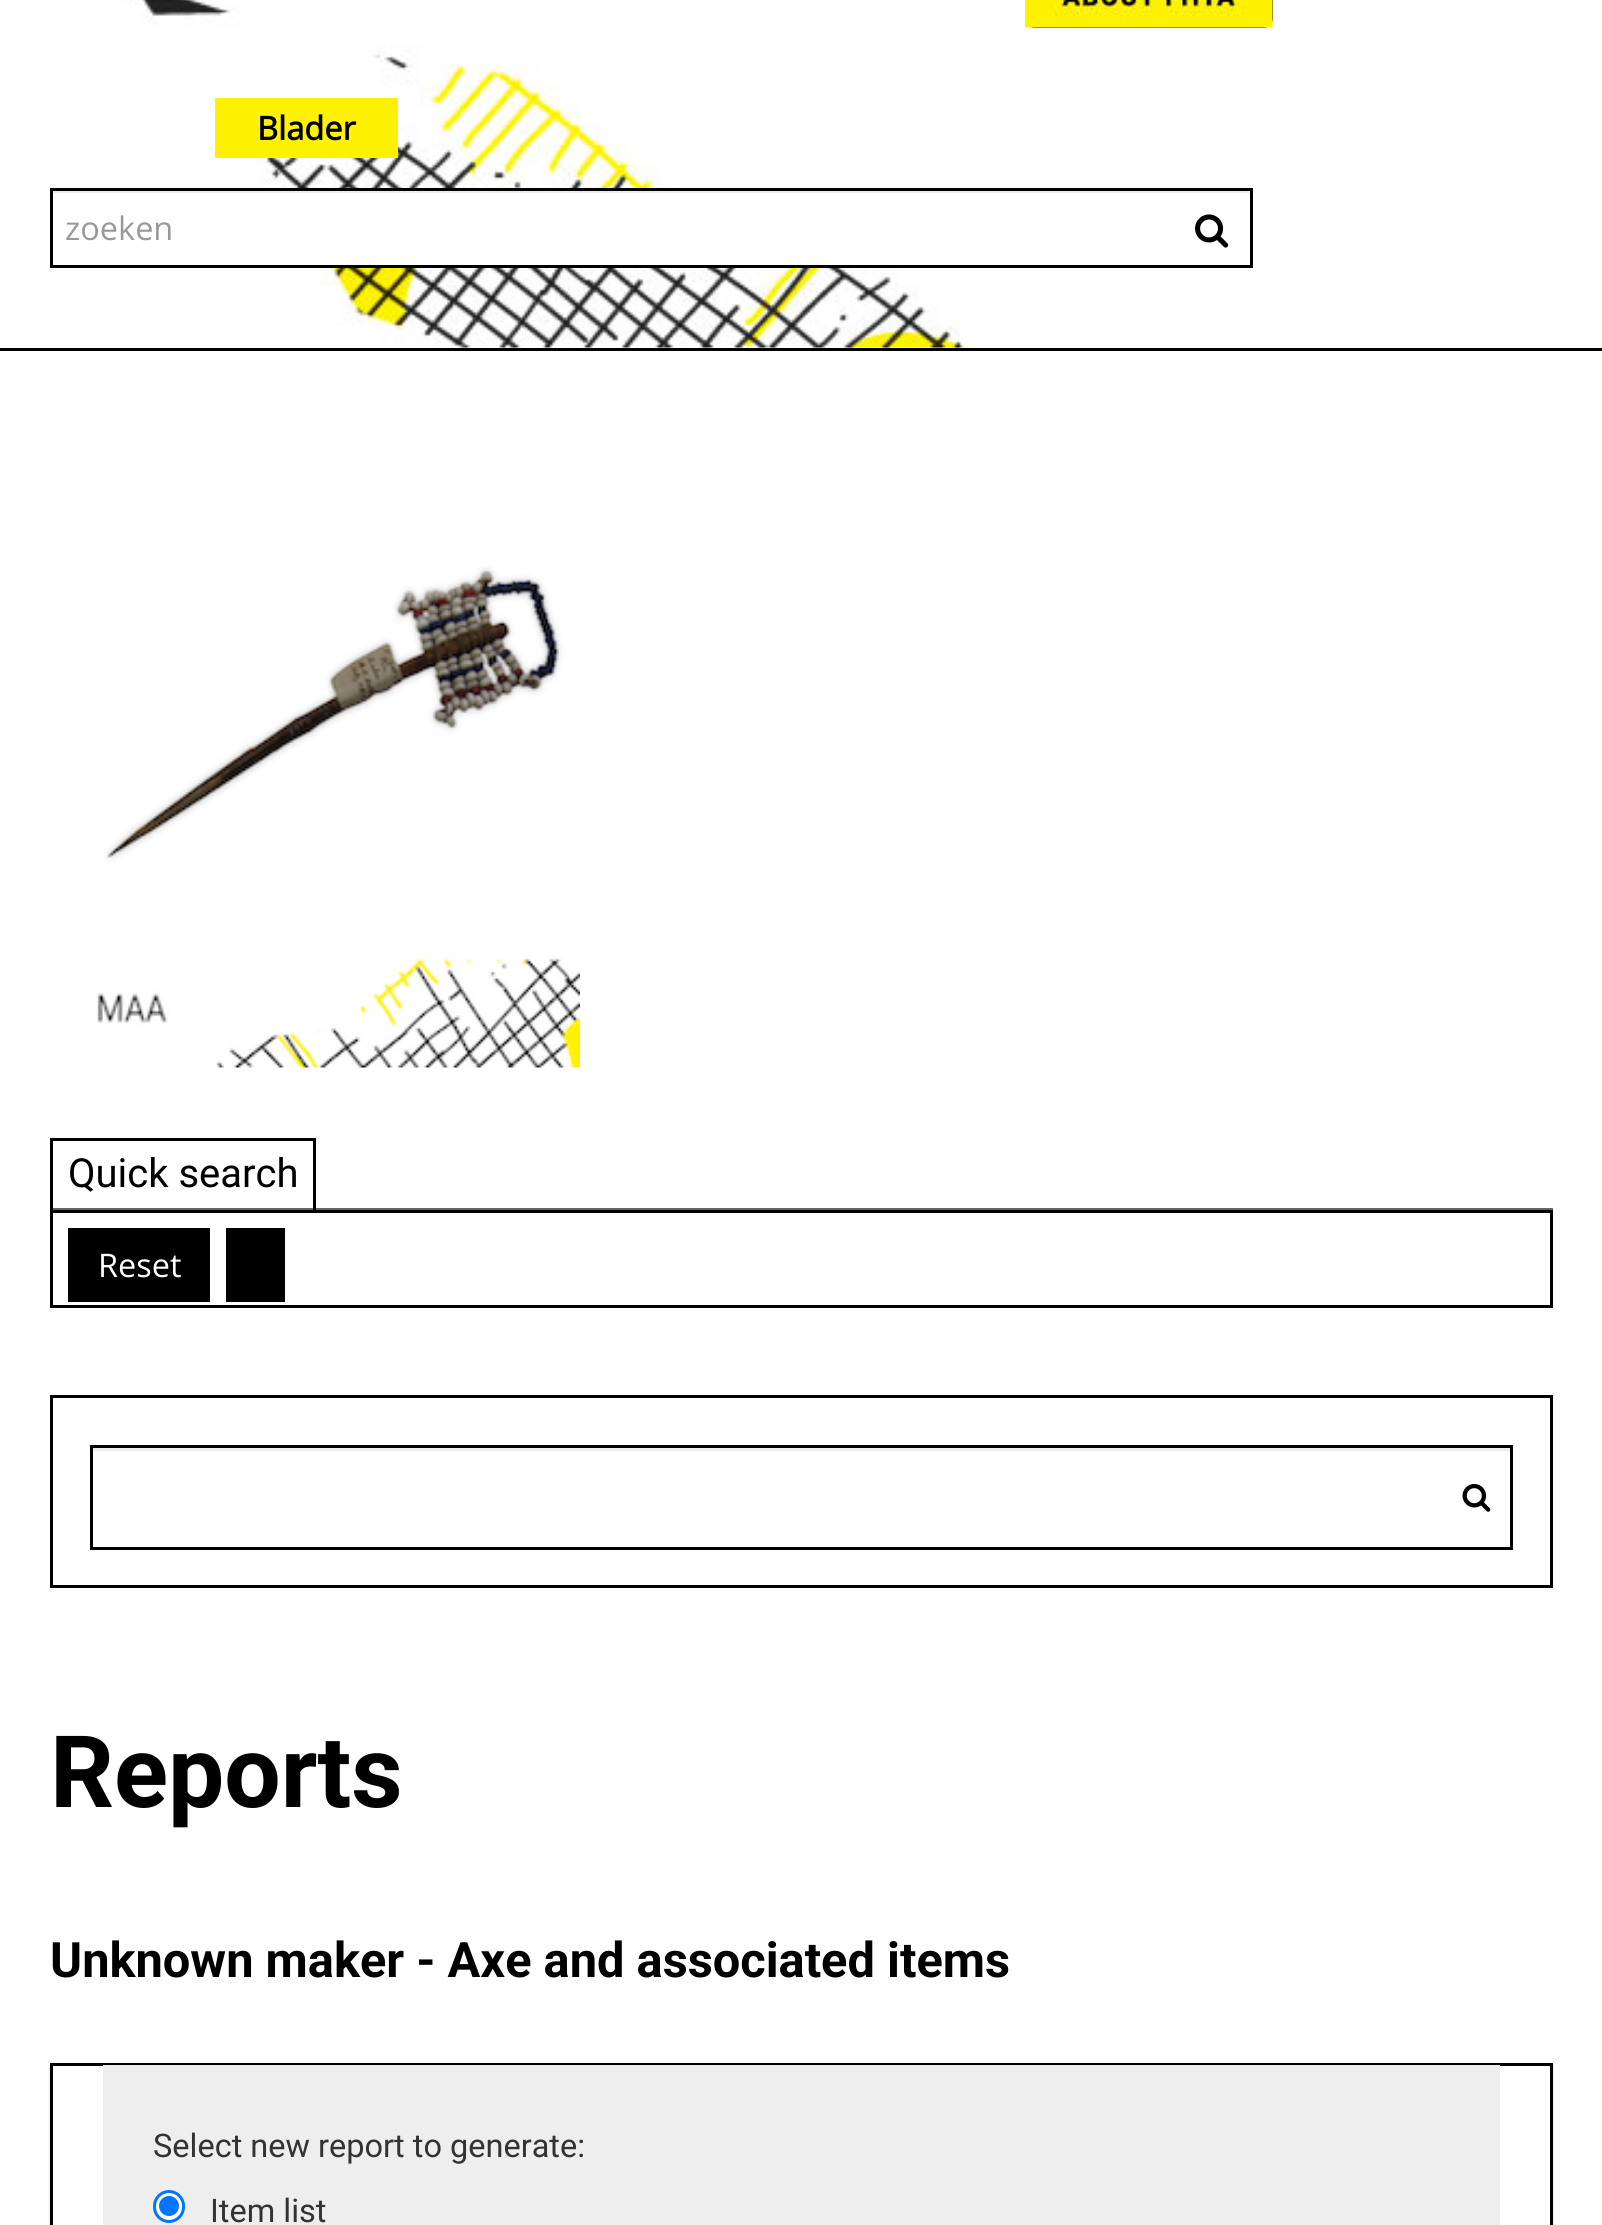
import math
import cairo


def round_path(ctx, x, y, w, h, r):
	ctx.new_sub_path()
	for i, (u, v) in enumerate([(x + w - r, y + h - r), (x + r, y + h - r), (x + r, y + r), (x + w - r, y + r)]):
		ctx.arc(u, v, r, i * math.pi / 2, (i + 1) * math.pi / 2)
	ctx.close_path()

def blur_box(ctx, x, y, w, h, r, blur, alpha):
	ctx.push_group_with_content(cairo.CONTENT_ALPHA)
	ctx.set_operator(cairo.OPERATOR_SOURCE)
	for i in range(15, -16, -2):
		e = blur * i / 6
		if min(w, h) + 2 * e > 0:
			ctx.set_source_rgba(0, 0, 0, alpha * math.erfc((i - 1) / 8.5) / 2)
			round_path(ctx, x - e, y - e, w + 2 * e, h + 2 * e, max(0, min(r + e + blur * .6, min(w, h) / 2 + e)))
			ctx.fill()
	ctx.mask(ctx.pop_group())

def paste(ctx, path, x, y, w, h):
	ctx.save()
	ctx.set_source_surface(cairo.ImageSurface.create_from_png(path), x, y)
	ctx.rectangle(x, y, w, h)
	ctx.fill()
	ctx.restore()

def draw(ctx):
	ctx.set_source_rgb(1, 1, 1)
	ctx.paint()
	paste(ctx, 'media/1.png', 121, 0, 856, 348)
	ctx.set_source_rgb(0.2, 0.2, 0.2)
	round_path(ctx, 1025, -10, 248, 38, 10)
	ctx.fill()
	paste(ctx, 'media/2.png', 1025, 0, 248, 28)
	ctx.set_source_rgb(1, 0.949, 0)
	ctx.rectangle(215, 98, 183, 60)
	ctx.fill()
	ctx.select_font_face('Open Sans', cairo.FONT_SLANT_NORMAL, cairo.FONT_WEIGHT_BOLD)
	ctx.set_font_size(32.5)
	ctx.set_source_rgb(0, 0, 0)
	ctx.move_to(257, 140)
	ctx.show_text('Blader')
	ctx.set_source_rgb(1, 1, 1)
	ctx.rectangle(279, 193, 562, 72)
	ctx.fill()
	ctx.set_source_rgb(0.925, 0.925, 0.925)
	ctx.rectangle(53, 191, 1197, 2)
	ctx.fill()
	ctx.rectangle(51.5, 189.5, 1200, 77)
	ctx.set_source_rgb(0, 0, 0)
	ctx.set_line_width(3)
	ctx.stroke()
	ctx.select_font_face('Open Sans')
	ctx.set_source_rgb(0.6, 0.6, 0.6)
	ctx.move_to(65, 240)
	ctx.show_text('zoeken')
	paste(ctx, 'media/3.png', 1195, 214, 34, 34)
	ctx.set_source_rgb(0, 0, 0)
	ctx.rectangle(0, 348, 1602, 3)
	ctx.fill()
	paste(ctx, 'media/4.png', 97, 566, 483, 502)
	ctx.set_source_rgb(0.4, 0.4, 0.4)
	ctx.rectangle(50, 1208, 1503, 2)
	ctx.fill()
	ctx.set_source_rgb(0, 0, 0)
	ctx.rectangle(50, 1138, 265, 3)
	ctx.rectangle(313, 1138, 3, 72)
	ctx.rectangle(50, 1138, 3, 72)
	ctx.fill()
	ctx.select_font_face('Roboto')
	ctx.set_font_size(40)
	ctx.move_to(68, 1187)
	ctx.show_text('Quick search')
	ctx.rectangle(51.5, 1211.5, 1500, 95)
	ctx.stroke()
	ctx.rectangle(68, 1228, 142, 74)
	ctx.fill()
	ctx.select_font_face('Open Sans')
	ctx.set_font_size(32.5)
	ctx.set_source_rgb(1, 1, 1)
	ctx.move_to(98, 1277)
	ctx.show_text('Reset')
	ctx.set_source_rgb(0, 0, 0)
	ctx.rectangle(226, 1228, 59, 74)
	ctx.fill()
	ctx.rectangle(51.5, 1396.5, 1500, 190)
	ctx.stroke()
	ctx.set_source_rgb(0.925, 0.925, 0.925)
	ctx.rectangle(93, 1448, 1417, 3)
	ctx.fill()
	ctx.rectangle(91.5, 1446.5, 1420, 102)
	ctx.set_source_rgb(0, 0, 0)
	ctx.stroke()
	paste(ctx, 'media/5.png', 1462, 1483, 29, 29)
	ctx.select_font_face('Roboto', cairo.FONT_SLANT_NORMAL, cairo.FONT_WEIGHT_BOLD)
	ctx.set_font_size(100)
	ctx.move_to(50, 1807)
	ctx.show_text('Reports')
	ctx.set_font_size(48.75)
	ctx.move_to(50, 1977)
	ctx.show_text('Unknown maker - Axe and associated items')
	ctx.set_source_rgb(0, 0, 0)
	blur_box(ctx, 50, 2065, 1503, 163, 0, 1, 0.2)
	ctx.set_source_rgb(1, 1, 1)
	ctx.rectangle(51.5, 2064.5, 1500, 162)
	ctx.fill_preserve()
	ctx.set_source_rgb(0, 0, 0)
	ctx.stroke()
	ctx.set_source_rgb(0.933, 0.933, 0.933)
	ctx.rectangle(103, 2065, 1397, 160)
	ctx.fill()
	ctx.select_font_face('Roboto')
	ctx.set_font_size(32.5)
	ctx.set_source_rgb(0.2, 0.2, 0.2)
	ctx.move_to(153, 2157)
	ctx.show_text('Select new report to generate:')
	ctx.set_source_rgb(1, 1, 1)
	round_path(ctx, 154.5, 2191.5, 29, 30, 14.5)
	ctx.fill_preserve()
	ctx.set_source_rgb(0, 0.459, 1)
	ctx.stroke()
	ctx.arc(169, 2206, 10, 0, 2 * math.pi)
	ctx.fill()
	ctx.set_source_rgb(0.2, 0.2, 0.2)
	ctx.move_to(210, 2222)
	ctx.show_text('Item list')


surface = cairo.ImageSurface(cairo.FORMAT_RGB24, 1602, 2225)
ctx = cairo.Context(surface)
options = cairo.FontOptions()
options.set_hint_metrics(cairo.HINT_METRICS_OFF)
options.set_hint_style(cairo.HINT_STYLE_NONE)
ctx.set_font_options(options)
ctx.set_miter_limit(4)
draw(ctx)
surface.write_to_png('image.png')
